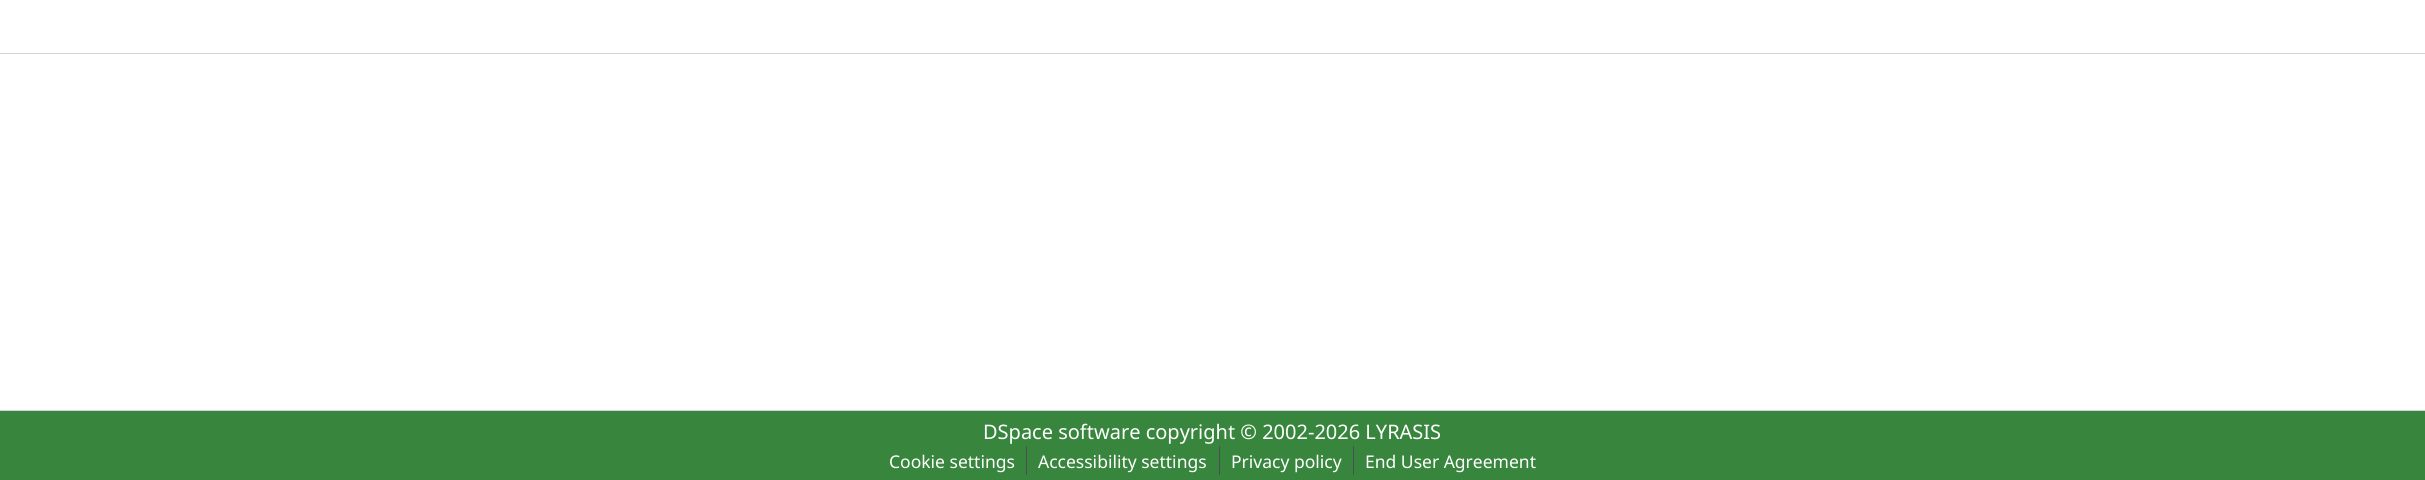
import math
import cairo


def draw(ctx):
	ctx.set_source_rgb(1, 1, 1)
	ctx.paint()
	ctx.set_source_rgb(0.808, 0.831, 0.855)
	ctx.rectangle(0, 53, 2425, 1)
	ctx.fill()
	ctx.set_source_rgb(0.22, 0.525, 0.239)
	ctx.rectangle(0, 411, 2425, 69)
	ctx.fill()
	ctx.set_source_rgb(0.808, 0.831, 0.855)
	ctx.rectangle(0, 410, 2425, 1)
	ctx.fill()
	ctx.select_font_face('Noto Sans')
	ctx.set_font_size(20)
	ctx.set_source_rgb(1, 1, 1)
	ctx.move_to(983, 439)
	ctx.show_text('DSpace software copyright © 2002-2026 LYRASIS')
	ctx.set_font_size(17.5)
	ctx.move_to(889, 468)
	ctx.show_text('Cookie settings')
	ctx.set_source_rgb(0.286, 0.314, 0.341)
	ctx.rectangle(1026, 446, 1, 29)
	ctx.fill()
	ctx.set_source_rgb(1, 1, 1)
	ctx.move_to(1038, 468)
	ctx.show_text('Accessibility settings')
	ctx.set_source_rgb(0.286, 0.314, 0.341)
	ctx.rectangle(1219, 446, 1, 29)
	ctx.fill()
	ctx.set_source_rgb(1, 1, 1)
	ctx.move_to(1231, 468)
	ctx.show_text('Privacy policy')
	ctx.set_source_rgb(0.286, 0.314, 0.341)
	ctx.rectangle(1353, 446, 1, 29)
	ctx.fill()
	ctx.set_source_rgb(1, 1, 1)
	ctx.move_to(1365, 468)
	ctx.show_text('End User Agreement')


surface = cairo.ImageSurface(cairo.FORMAT_RGB24, 2425, 480)
ctx = cairo.Context(surface)
options = cairo.FontOptions()
options.set_hint_metrics(cairo.HINT_METRICS_OFF)
options.set_hint_style(cairo.HINT_STYLE_NONE)
ctx.set_font_options(options)
ctx.set_miter_limit(4)
draw(ctx)
surface.write_to_png('image.png')
